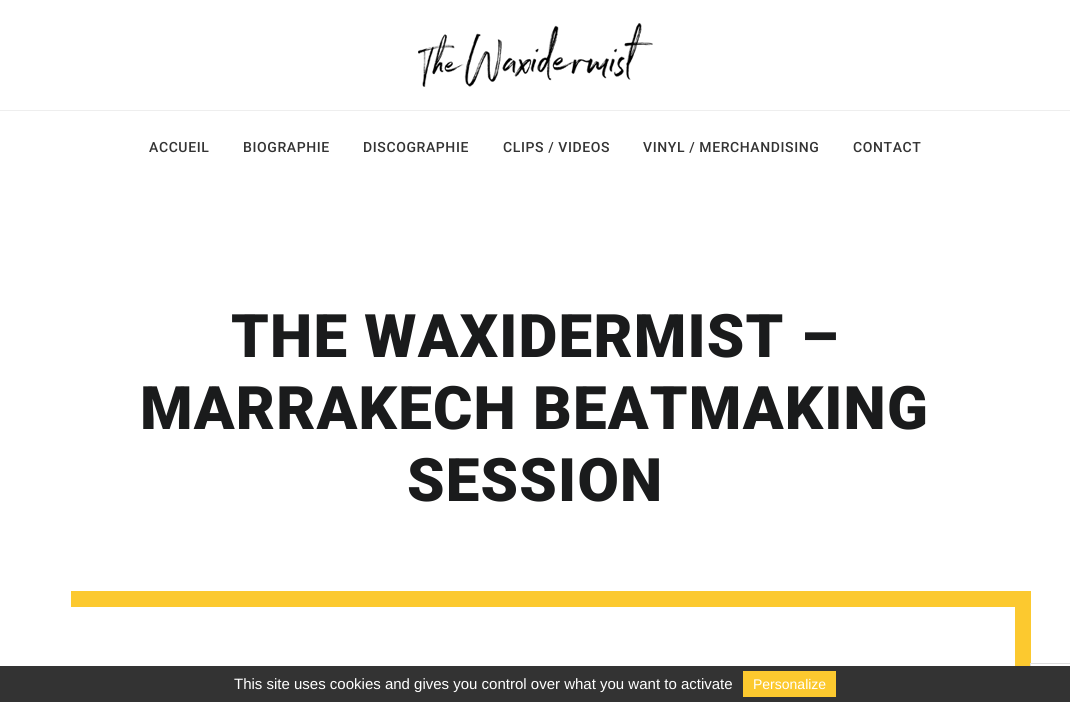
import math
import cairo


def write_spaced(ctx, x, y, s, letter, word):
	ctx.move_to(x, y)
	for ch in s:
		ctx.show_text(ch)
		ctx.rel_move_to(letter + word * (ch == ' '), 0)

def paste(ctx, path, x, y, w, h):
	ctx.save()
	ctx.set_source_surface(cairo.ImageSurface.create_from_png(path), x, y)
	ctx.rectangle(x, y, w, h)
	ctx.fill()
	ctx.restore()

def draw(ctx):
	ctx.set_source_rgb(1, 1, 1)
	ctx.paint()
	paste(ctx, 'media/1.png', 418, 23, 235, 64)
	ctx.set_source_rgb(0.933, 0.933, 0.933)
	ctx.rectangle(0, 110, 1070, 1)
	ctx.fill()
	ctx.select_font_face('Roboto Medium')
	ctx.set_font_size(14)
	ctx.set_source_rgb(0.2, 0.2, 0.2)
	for x, y, s in [
		(149, 152, 'ACCUEIL'),
		(243, 152, 'BIOGRAPHIE'),
		(363, 152, 'DISCOGRAPHIE'),
		(503, 152, 'CLIPS / VIDEOS'),
		(643, 152, 'VINYL / MERCHANDISING'),
		(853, 152, 'CONTACT'),
	]:
		write_spaced(ctx, x, y, s, 0.6, 0)
	ctx.select_font_face('Roboto Black')
	ctx.set_font_size(60)
	ctx.set_source_rgb(0.102, 0.106, 0.11)
	for x, y, s in [
		(231, 357, 'THE WAXIDERMIST –'),
		(140, 429, 'MARRAKECH BEATMAKING'),
		(407, 501, 'SESSION'),
	]:
		write_spaced(ctx, x, y, s, 1.2, 0)
	ctx.set_source_rgb(0.988, 0.788, 0.184)
	ctx.new_path()
	ctx.move_to(71, 591)
	ctx.line_to(71, 607)
	ctx.line_to(1015, 607)
	ctx.line_to(1015, 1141)
	ctx.line_to(1031, 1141)
	ctx.line_to(1031, 591)
	ctx.close_path()
	ctx.fill()
	ctx.set_source_rgb(0.867, 0.867, 0.867)
	ctx.rectangle(1030, 663, 40, 1)
	ctx.rectangle(1030, 663, 1, 3)
	ctx.fill()
	ctx.set_source_rgb(0.2, 0.2, 0.2)
	ctx.rectangle(0, 666, 1070, 36)
	ctx.fill()
	ctx.select_font_face('Liberation Sans')
	ctx.set_font_size(15)
	ctx.set_source_rgb(1, 1, 1)
	ctx.move_to(234, 689)
	ctx.show_text('This site uses cookies and gives you control over what you want to activate')
	ctx.set_source_rgb(0.988, 0.788, 0.184)
	ctx.rectangle(743, 671, 93, 26)
	ctx.fill()
	ctx.set_font_size(14)
	ctx.set_source_rgb(1, 1, 1)
	ctx.move_to(753, 689)
	ctx.show_text('Personalize')


surface = cairo.ImageSurface(cairo.FORMAT_RGB24, 1070, 702)
ctx = cairo.Context(surface)
options = cairo.FontOptions()
options.set_hint_metrics(cairo.HINT_METRICS_OFF)
options.set_hint_style(cairo.HINT_STYLE_NONE)
ctx.set_font_options(options)
ctx.set_miter_limit(4)
draw(ctx)
surface.write_to_png('image.png')
